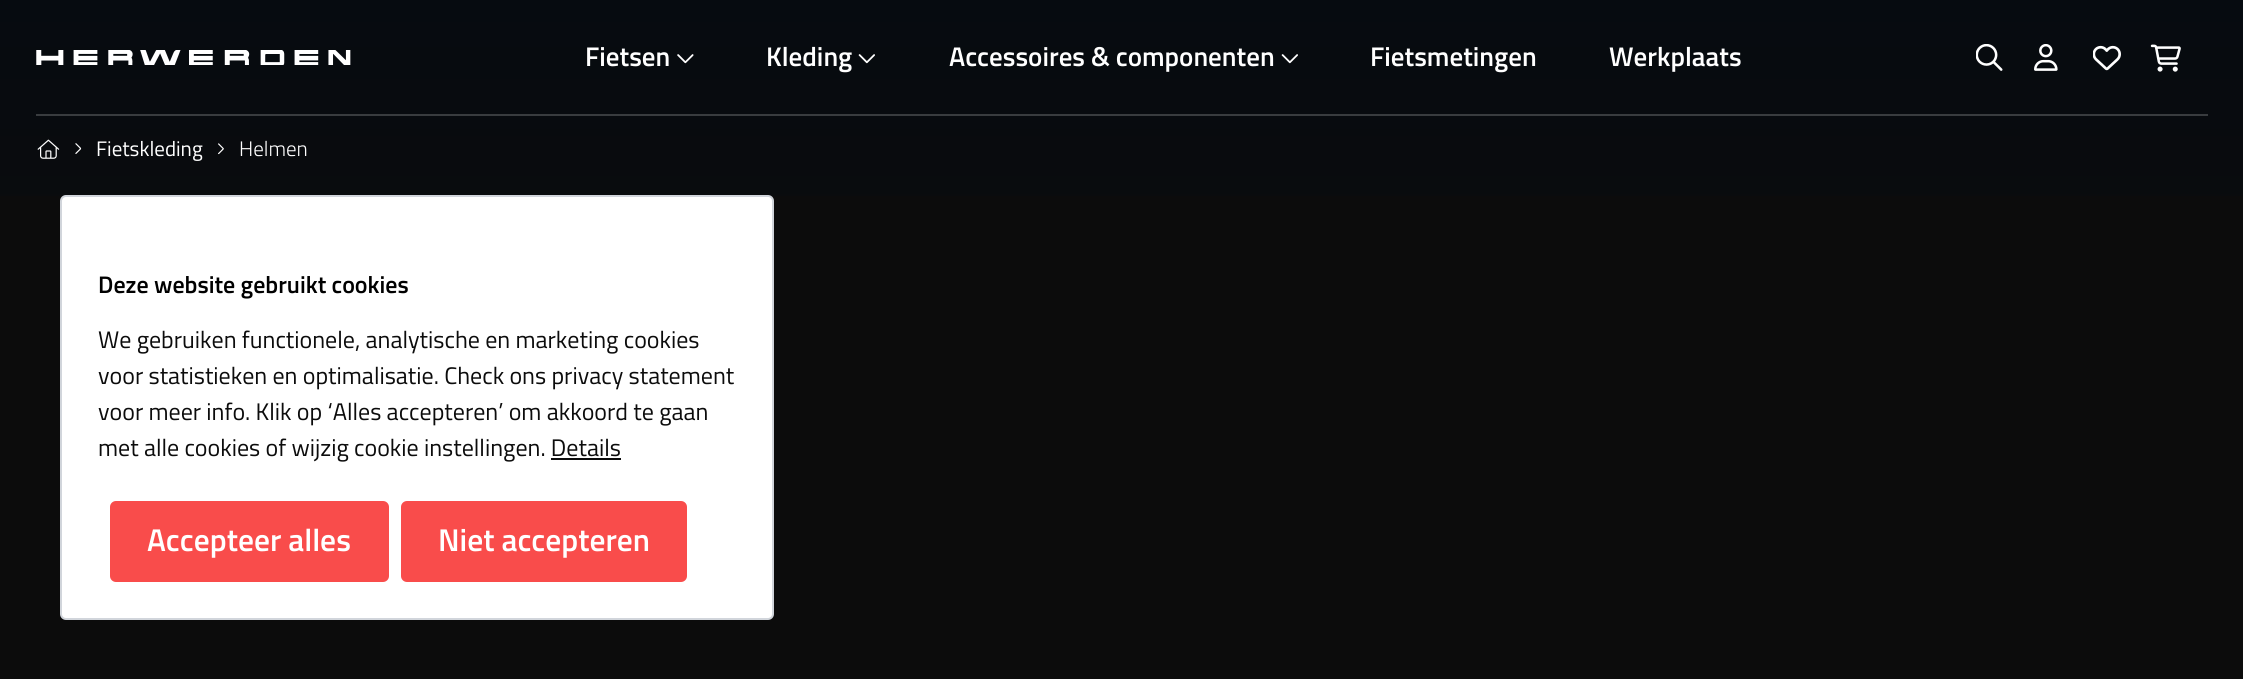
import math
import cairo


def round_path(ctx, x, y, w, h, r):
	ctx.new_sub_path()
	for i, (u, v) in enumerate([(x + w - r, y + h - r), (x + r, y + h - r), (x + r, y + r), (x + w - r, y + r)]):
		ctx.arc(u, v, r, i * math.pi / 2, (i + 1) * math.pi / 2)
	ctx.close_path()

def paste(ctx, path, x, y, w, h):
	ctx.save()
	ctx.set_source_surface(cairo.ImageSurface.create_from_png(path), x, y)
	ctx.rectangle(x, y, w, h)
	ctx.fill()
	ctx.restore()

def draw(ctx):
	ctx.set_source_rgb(0.047, 0.047, 0.047)
	ctx.paint()
	gradient = cairo.LinearGradient(1122, 0, 1122, 336)
	gradient.add_color_stop_rgba(0, 0.024, 0.043, 0.063, 1)
	gradient.add_color_stop_rgba(1, 0.047, 0.047, 0.047, 1)
	ctx.set_source(gradient)
	ctx.rectangle(0, 0, 2243, 196)
	ctx.fill()
	ctx.set_source_rgb(0.224, 0.235, 0.247)
	ctx.rectangle(36, 114, 2172, 2)
	ctx.fill()
	paste(ctx, 'media/1.png', 36, 50, 315, 15)
	ctx.select_font_face('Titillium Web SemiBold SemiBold')
	ctx.set_font_size(27)
	ctx.set_source_rgb(1, 1, 1)
	ctx.move_to(585, 66)
	ctx.show_text('Fietsen')
	paste(ctx, 'media/2.png', 677, 54, 17, 10)
	ctx.move_to(766, 66)
	ctx.show_text('Kleding')
	paste(ctx, 'media/3.png', 858, 54, 17, 10)
	ctx.move_to(949, 66)
	ctx.show_text('Accessoires & componenten')
	paste(ctx, 'media/3.png', 1281, 54, 17, 10)
	ctx.move_to(1370, 66)
	ctx.show_text('Fietsmetingen')
	ctx.move_to(1609, 66)
	ctx.show_text('Werkplaats')
	paste(ctx, 'media/4.png', 1976, 44, 27, 27)
	paste(ctx, 'media/5.png', 2034, 44, 24, 27)
	paste(ctx, 'media/6.png', 2093, 45, 28, 26)
	paste(ctx, 'media/7.png', 2150, 44, 31, 28)
	paste(ctx, 'media/8.png', 37, 139, 23, 20)
	paste(ctx, 'media/9.png', 75, 143, 7, 11)
	ctx.select_font_face('Titillium Web')
	ctx.set_font_size(21)
	ctx.move_to(96, 156)
	ctx.show_text('Fietskleding')
	paste(ctx, 'media/10.png', 218, 143, 6, 12)
	ctx.select_font_face('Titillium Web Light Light')
	ctx.move_to(239, 156)
	ctx.show_text('Helmen')
	round_path(ctx, 61, 196, 712, 423, 5)
	ctx.fill_preserve()
	ctx.set_source_rgb(0.82, 0.835, 0.859)
	ctx.stroke()
	ctx.select_font_face('Titillium Web SemiBold SemiBold')
	ctx.set_font_size(24)
	ctx.set_source_rgb(0, 0, 0)
	ctx.move_to(98, 293)
	ctx.show_text('Deze website gebruikt cookies')
	ctx.select_font_face('Titillium Web')
	ctx.set_source_rgb(0.047, 0.047, 0.047)
	for x, y, s in [
		(98, 348, 'We gebruiken functionele, analytische en marketing cookies'),
		(98, 384, 'voor statistieken en optimalisatie. Check ons privacy statement'),
		(98, 420, 'voor meer info. Klik op ‘Alles accepteren’ om akkoord te gaan'),
		(98, 456, 'met alle cookies of wijzig cookie instellingen. Details'),
	]:
		ctx.move_to(x, y)
		ctx.show_text(s)
	ctx.rectangle(551, 458, 70, 2)
	ctx.fill()
	ctx.set_source_rgb(0.976, 0.298, 0.294)
	round_path(ctx, 111, 502, 277, 79, 5)
	ctx.fill_preserve()
	ctx.stroke()
	ctx.select_font_face('Titillium Web SemiBold SemiBold')
	ctx.set_font_size(31.5)
	ctx.set_source_rgb(1, 1, 1)
	ctx.move_to(147, 551)
	ctx.show_text('Accepteer alles')
	ctx.set_source_rgb(0.976, 0.298, 0.294)
	round_path(ctx, 402, 502, 284, 79, 5)
	ctx.fill_preserve()
	ctx.stroke()
	ctx.set_source_rgb(1, 1, 1)
	ctx.move_to(438, 551)
	ctx.show_text('Niet accepteren')


surface = cairo.ImageSurface(cairo.FORMAT_RGB24, 2243, 679)
ctx = cairo.Context(surface)
options = cairo.FontOptions()
options.set_hint_metrics(cairo.HINT_METRICS_OFF)
options.set_hint_style(cairo.HINT_STYLE_NONE)
ctx.set_font_options(options)
ctx.set_miter_limit(4)
draw(ctx)
surface.write_to_png('image.png')
